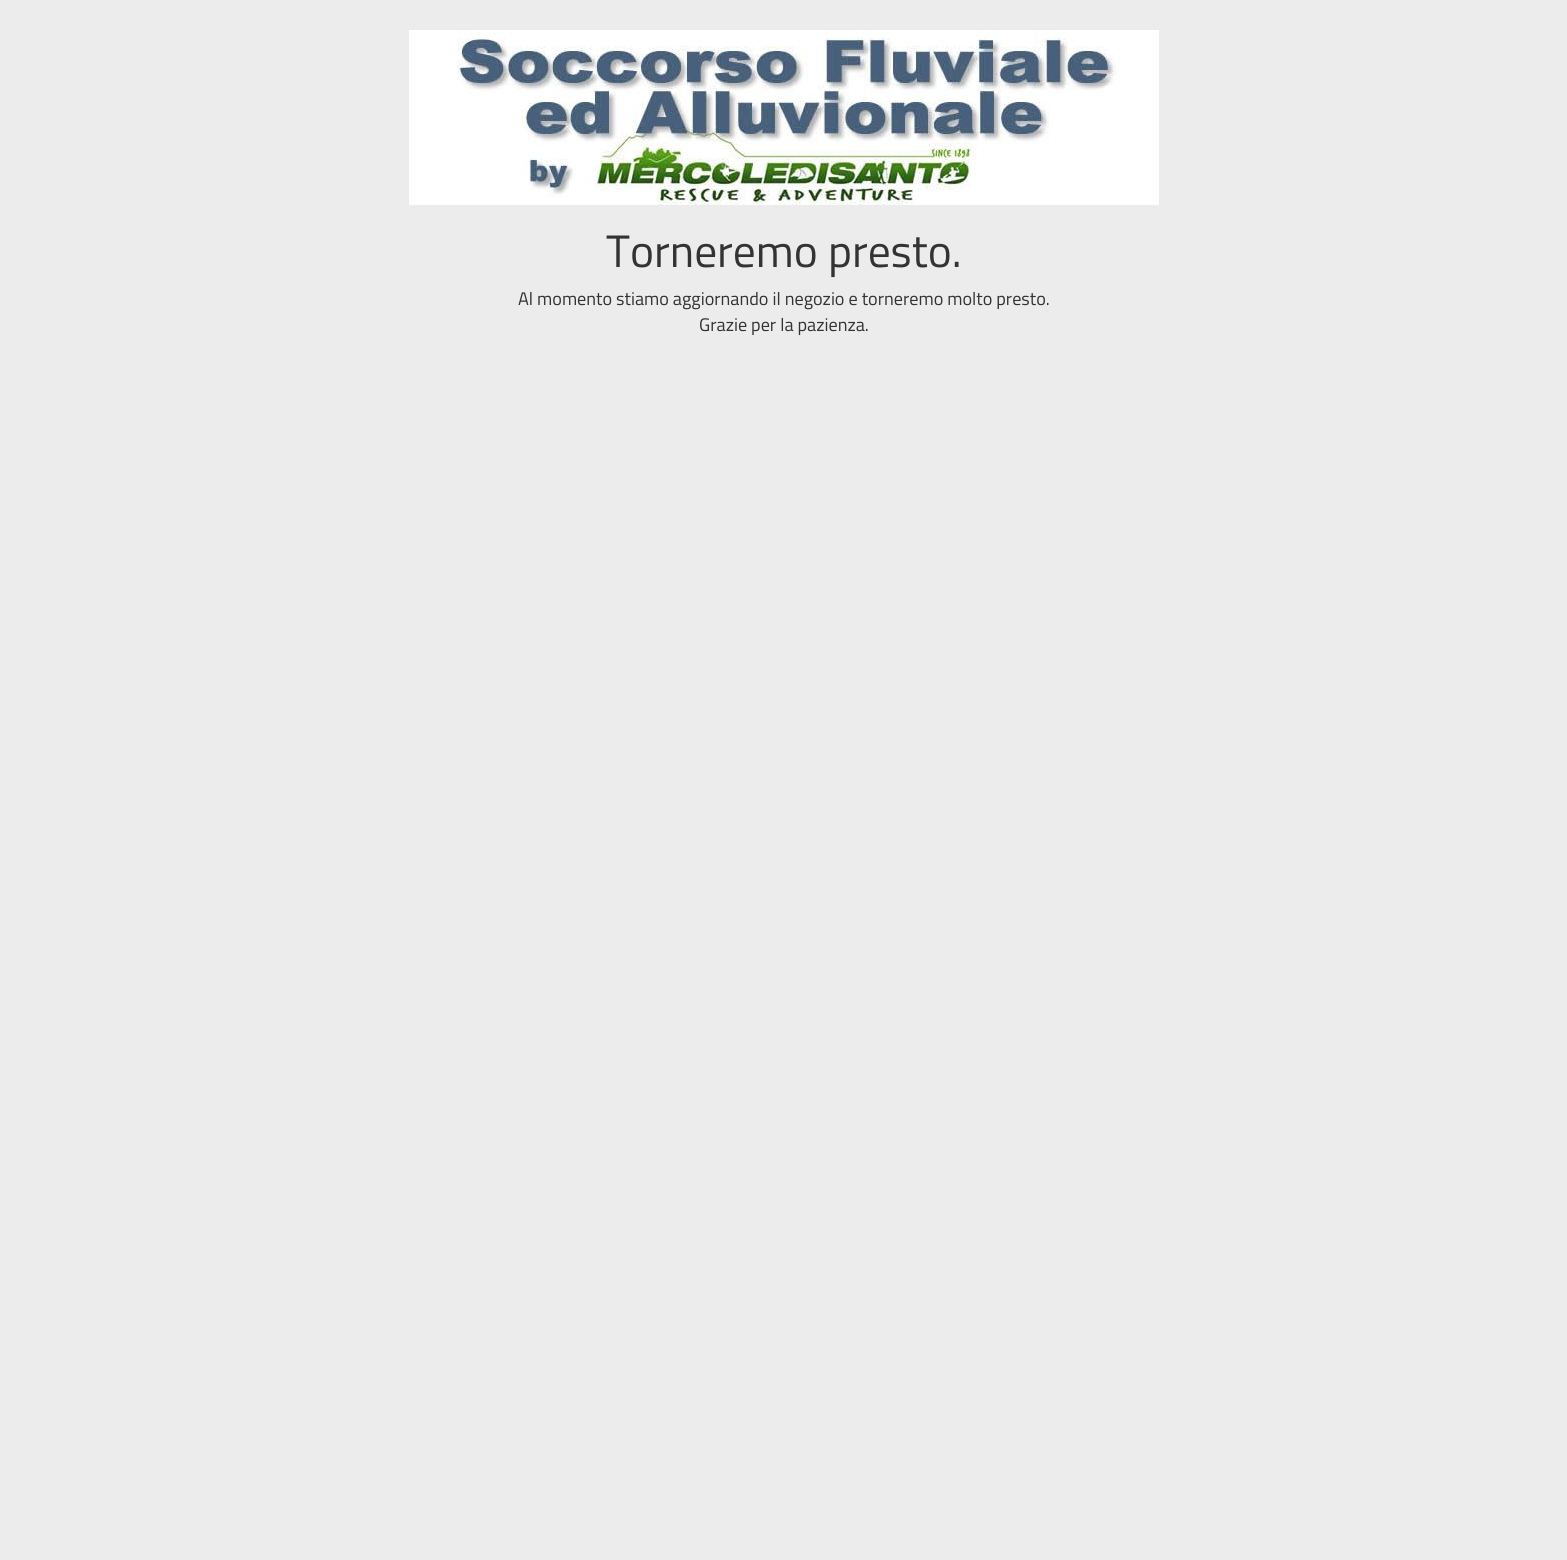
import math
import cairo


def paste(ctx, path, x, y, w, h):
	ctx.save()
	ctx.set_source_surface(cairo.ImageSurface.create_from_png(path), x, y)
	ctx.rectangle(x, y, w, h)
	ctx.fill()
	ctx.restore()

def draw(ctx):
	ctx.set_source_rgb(0.929, 0.925, 0.925)
	ctx.paint()
	paste(ctx, 'media/1.png', 409, 30, 750, 175)
	ctx.select_font_face('Titillium Web')
	ctx.set_font_size(45.5)
	ctx.set_source_rgb(0.2, 0.2, 0.2)
	ctx.move_to(606, 267)
	ctx.show_text('Torneremo presto.')
	ctx.set_font_size(18.2)
	ctx.move_to(518, 305)
	ctx.show_text('Al momento stiamo aggiornando il negozio e torneremo molto presto.')
	ctx.move_to(699, 331)
	ctx.show_text('Grazie per la pazienza.')


surface = cairo.ImageSurface(cairo.FORMAT_RGB24, 1567, 1560)
ctx = cairo.Context(surface)
options = cairo.FontOptions()
options.set_hint_metrics(cairo.HINT_METRICS_OFF)
options.set_hint_style(cairo.HINT_STYLE_NONE)
ctx.set_font_options(options)
ctx.set_miter_limit(4)
draw(ctx)
surface.write_to_png('image.png')
